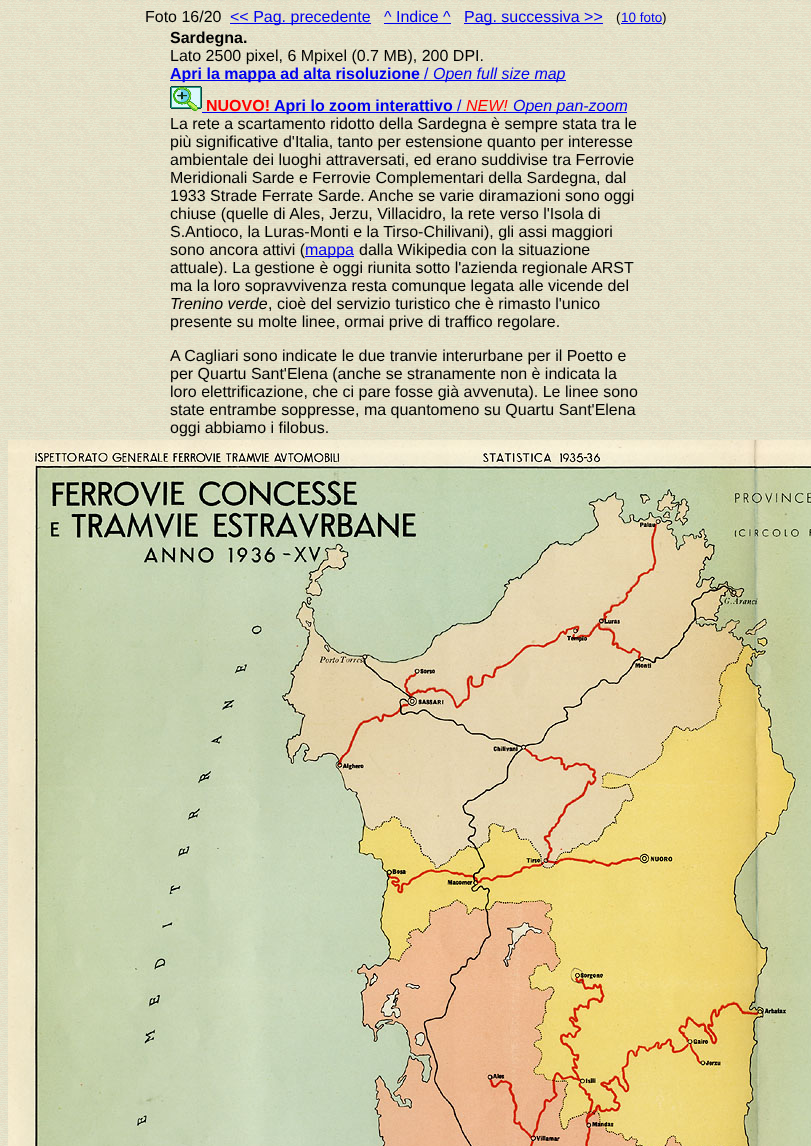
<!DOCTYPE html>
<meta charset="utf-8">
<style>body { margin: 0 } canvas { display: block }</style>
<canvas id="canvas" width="811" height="1146"></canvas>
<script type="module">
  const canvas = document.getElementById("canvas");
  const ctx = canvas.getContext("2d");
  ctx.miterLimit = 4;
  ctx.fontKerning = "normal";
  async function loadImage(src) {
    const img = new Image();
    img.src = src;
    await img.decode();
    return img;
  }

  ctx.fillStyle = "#ffffff";
  ctx.fillRect(0, 0, 811, 1146);
  ctx.drawImage(await loadImage("img1.png"), 0, 0, 811, 1146);
  ctx.font = "16px Liberation Sans";
  ctx.fillStyle = "#000000";
  ctx.fillText("Foto 16/20", 145, 22);
  ctx.fillStyle = "#0000ee";
  ctx.fillRect(230, 23, 141, 1);
  ctx.fillText("<< Pag. precedente", 230, 22);
  ctx.fillText("^ Indice ^", 384, 22);
  ctx.fillRect(384, 23, 67, 1);
  ctx.fillRect(464, 23, 139, 1);
  ctx.fillText("Pag. successiva >>", 464, 22);
  ctx.font = "13.5px Liberation Sans";
  ctx.fillStyle = "#000000";
  ctx.fillText("(", 616, 22);
  ctx.fillStyle = "#0000ee";
  ctx.fillRect(621, 23, 41, 1);
  ctx.fillText("10 foto", 621, 22);
  ctx.fillStyle = "#000000";
  ctx.fillText(")", 662, 22);
  ctx.font = "bold 16px Liberation Sans";
  ctx.fillText("Sardegna.", 170, 43);
  ctx.font = "16px Liberation Sans";
  ctx.fillText("Lato 2500 pixel, 6 Mpixel (0.7 MB), 200 DPI.", 170, 61);
  ctx.fillStyle = "#0000ee";
  ctx.fillRect(170, 80, 396, 1);
  ctx.font = "bold 16px Liberation Sans";
  ctx.fillText("Apri la mappa ad alta risoluzione", 170, 79);
  ctx.font = "16px Liberation Sans";
  ctx.fillText("/", 424, 79);
  ctx.font = "italic 16px Liberation Sans";
  ctx.fillText("Open full size map", 433, 79);
  ctx.drawImage(await loadImage("img2.png"), 170, 86, 32, 25);
  ctx.font = "bold 16px Liberation Sans";
  ctx.fillStyle = "#ff0000";
  ctx.fillText("NUOVO!", 206, 111);
  ctx.fillStyle = "#0000ee";
  ctx.fillRect(202, 112, 425, 1);
  ctx.fillText("Apri lo zoom interattivo", 274, 111);
  ctx.font = "16px Liberation Sans";
  ctx.fillText("/", 457, 111);
  ctx.font = "italic 16px Liberation Sans";
  ctx.fillStyle = "#ff0000";
  ctx.fillText("NEW!", 466, 111);
  ctx.fillStyle = "#0000ee";
  ctx.fillText("Open pan-zoom", 513, 111);
  ctx.font = "16px Liberation Sans";
  ctx.fillStyle = "#000000";
  ctx.fillText("La rete a scartamento ridotto della Sardegna è sempre stata tra le", 170, 129);
  ctx.fillText("più significative d'Italia, tanto per estensione quanto per interesse", 170, 147);
  ctx.fillText("ambientale dei luoghi attraversati, ed erano suddivise tra Ferrovie", 170, 165);
  ctx.fillText("Meridionali Sarde e Ferrovie Complementari della Sardegna, dal", 170, 183);
  ctx.fillText("1933 Strade Ferrate Sarde. Anche se varie diramazioni sono oggi", 170, 201);
  ctx.fillText("chiuse (quelle di Ales, Jerzu, Villacidro, la rete verso l'Isola di", 170, 219);
  ctx.fillText("S.Antioco, la Luras-Monti e la Tirso-Chilivani), gli assi maggiori", 170, 237);
  ctx.fillText("sono ancora attivi (", 170, 255);
  ctx.fillStyle = "#0000ee";
  ctx.fillRect(305, 256, 49, 1);
  ctx.fillText("mappa", 305, 255);
  ctx.fillStyle = "#000000";
  ctx.fillText("dalla Wikipedia con la situazione", 359, 255);
  ctx.fillText("attuale). La gestione è oggi riunita sotto l'azienda regionale ARST", 170, 273);
  ctx.fillText("ma la loro sopravvivenza resta comunque legata alle vicende del", 170, 291);
  ctx.font = "italic 16px Liberation Sans";
  ctx.fillText("Trenino verde", 170, 309);
  ctx.font = "16px Liberation Sans";
  ctx.fillText(", cioè del servizio turistico che è rimasto l'unico", 268, 309);
  ctx.fillText("presente su molte linee, ormai prive di traffico regolare.", 170, 327);
  ctx.fillText("A Cagliari sono indicate le due tranvie interurbane per il Poetto e", 170, 361);
  ctx.fillText("per Quartu Sant'Elena (anche se stranamente non è indicata la", 170, 379);
  ctx.fillText("loro elettrificazione, che ci pare fosse già avvenuta). Le linee sono", 170, 397);
  ctx.fillText("state entrambe soppresse, ma quantomeno su Quartu Sant'Elena", 170, 415);
  ctx.fillText("oggi abbiamo i filobus.", 170, 433);
  ctx.drawImage(await loadImage("img3.png"), 8, 440, 803, 706);
</script>
